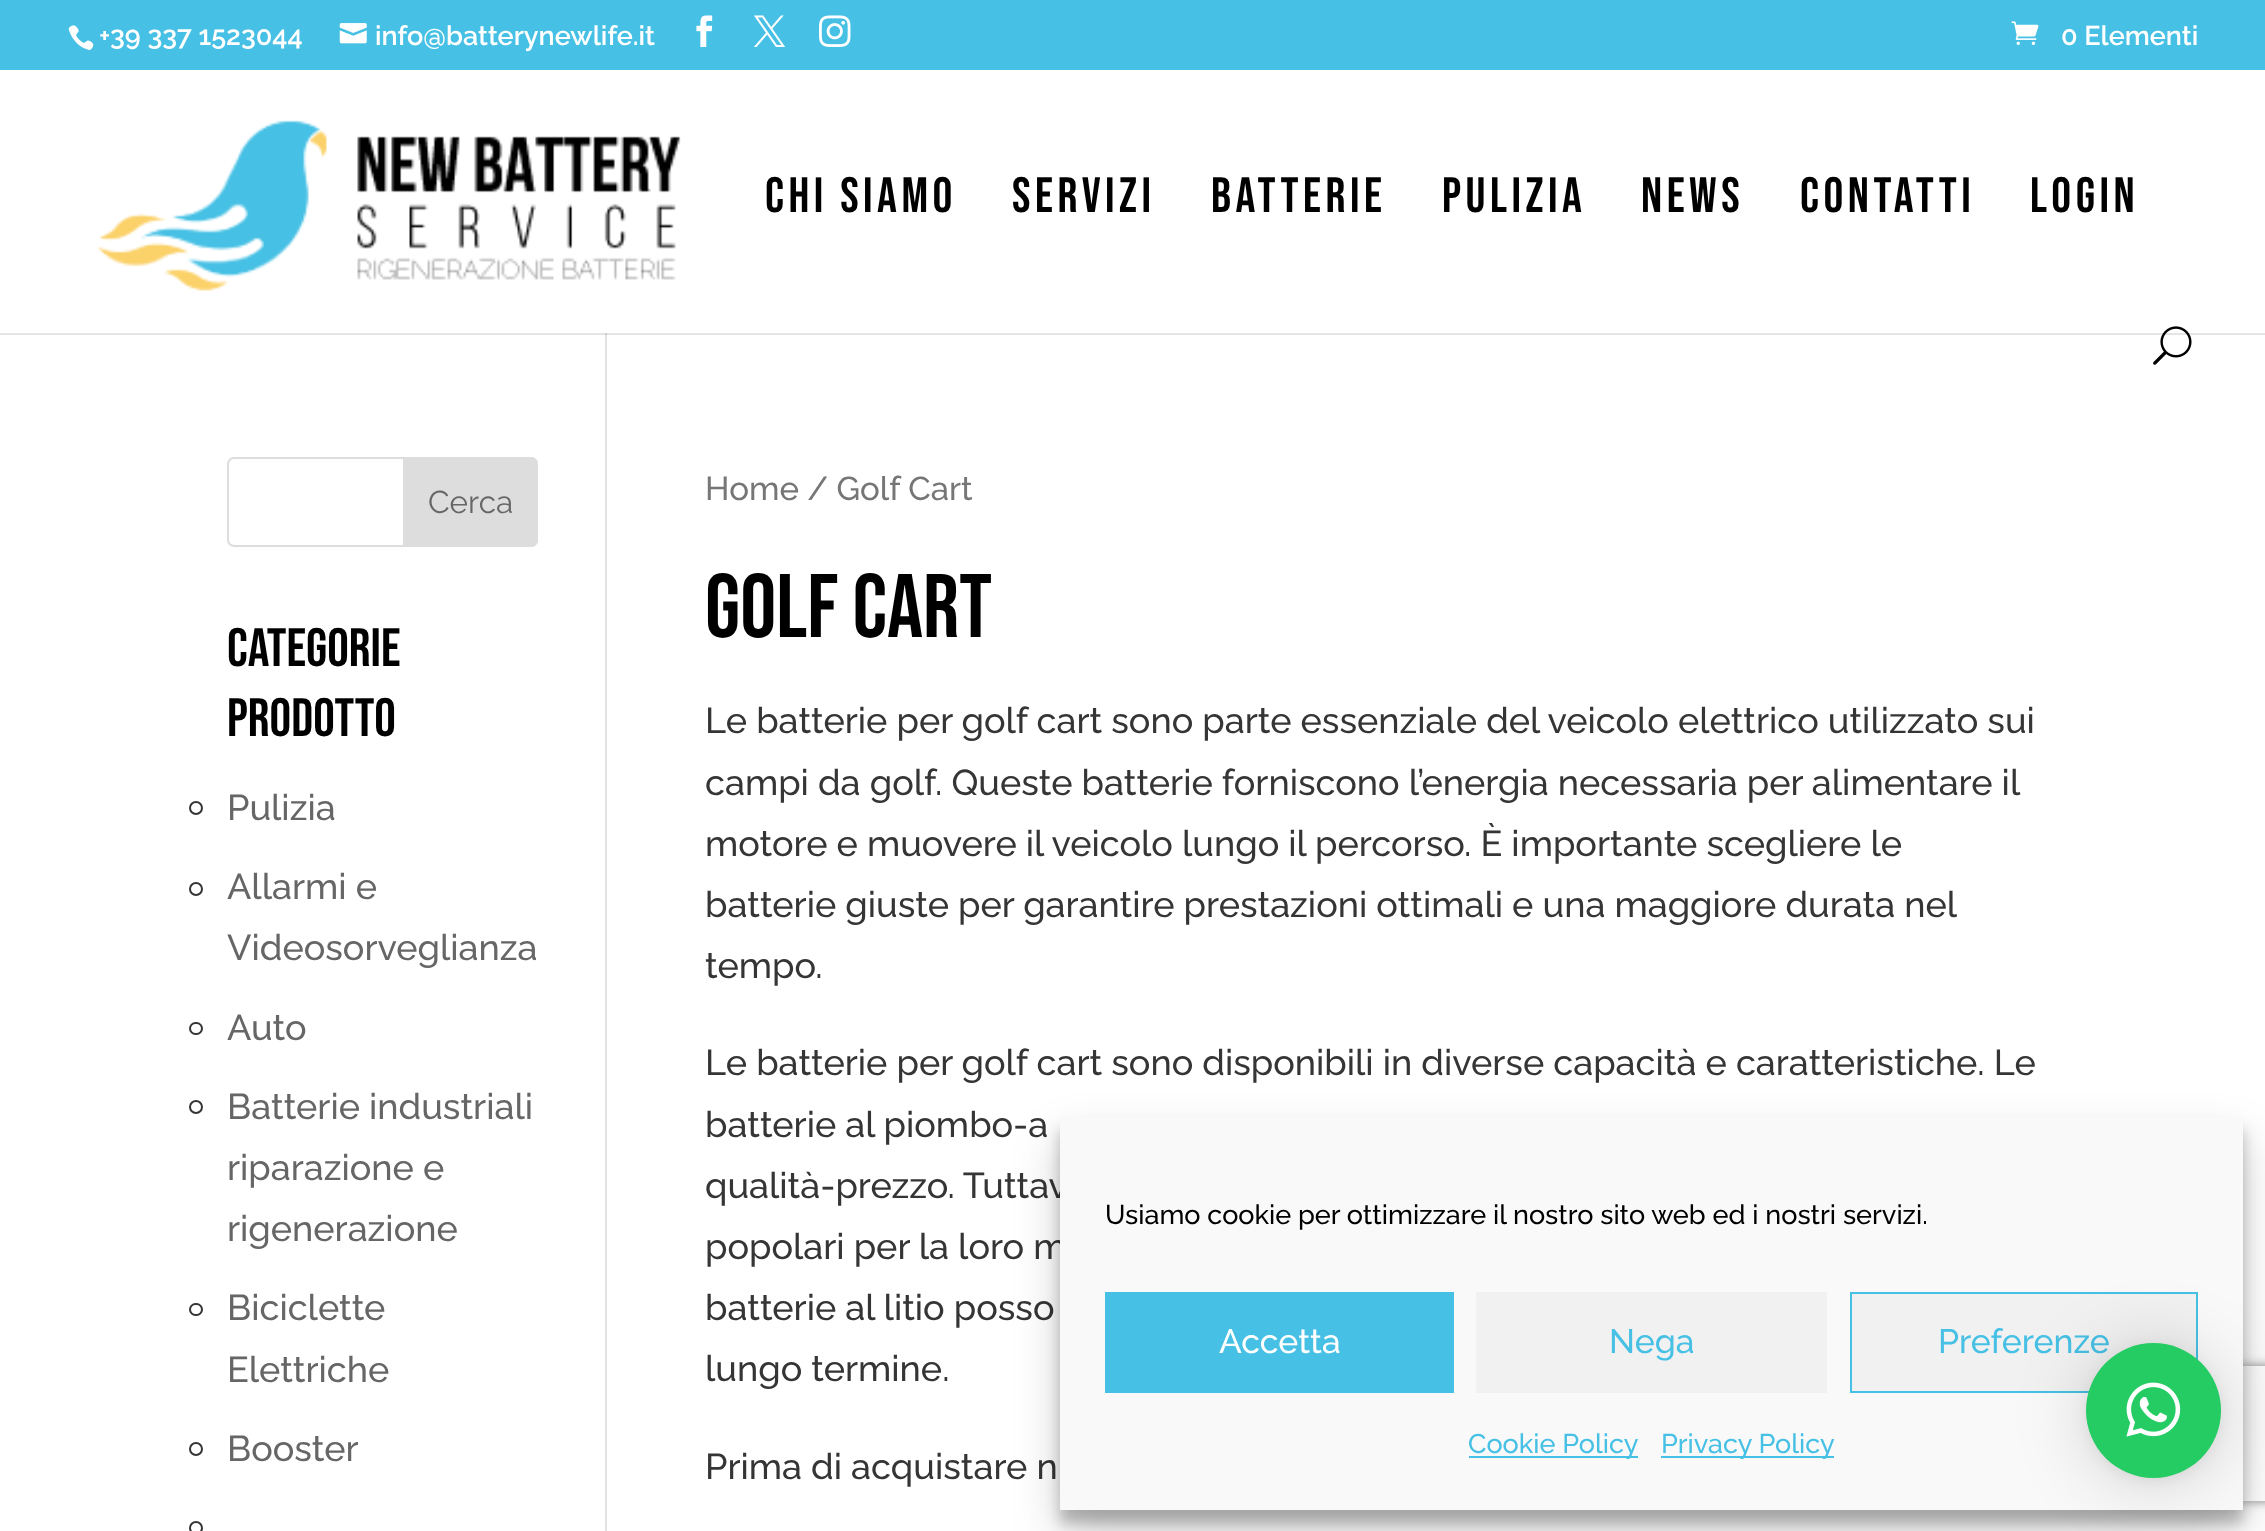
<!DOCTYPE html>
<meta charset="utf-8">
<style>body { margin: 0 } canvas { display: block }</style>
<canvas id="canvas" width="2265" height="1531"></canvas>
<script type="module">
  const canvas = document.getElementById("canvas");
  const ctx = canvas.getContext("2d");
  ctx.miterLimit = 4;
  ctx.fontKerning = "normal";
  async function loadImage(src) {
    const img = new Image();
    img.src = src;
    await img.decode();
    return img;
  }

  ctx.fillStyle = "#ffffff";
  ctx.fillRect(0, 0, 2265, 1531);
  ctx.fillStyle = "#46c0e4";
  ctx.fillRect(0, 0, 2265, 70);
  ctx.drawImage(await loadImage("img1.png"), 68, 25, 26, 26);
  ctx.font = "600 27px Raleway";
  ctx.fillStyle = "#ffffff";
  ctx.fillText("+39 337 1523044", 99, 45);
  ctx.drawImage(await loadImage("img2.png"), 339, 23, 28, 21);
  ctx.fillText("info@batterynewlife.it", 375, 45);
  ctx.drawImage(await loadImage("img3.png"), 696, 15, 17, 32);
  ctx.drawImage(await loadImage("img4.png"), 754, 15, 32, 32);
  ctx.drawImage(await loadImage("img5.png"), 819, 15, 32, 32);
  ctx.drawImage(await loadImage("img6.png"), 2011, 21, 28, 24);
  ctx.fillText("0 Elementi", 2061, 45);
  ctx.fillStyle = "#e2e2e2";
  ctx.fillRect(605, 326, 2, 1205);
  ctx.fillStyle = "rgba(0, 0, 0, 0.1)";
  ctx.beginPath();
  ctx.moveTo(0, 333);
  ctx.lineTo(0, 335);
  ctx.lineTo(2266, 335);
  ctx.lineTo(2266, 72);
  ctx.lineTo(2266, 333);
  ctx.closePath();
  ctx.fill();
  ctx.fillStyle = "#ffffff";
  ctx.fillRect(605, 326, 2, 7);
  ctx.drawImage(await loadImage("img7.png"), 97, 120, 584, 172);
  ctx.letterSpacing = "4.5px";
  ctx.font = "49.5px Bebas Neue";
  ctx.fillStyle = "#000000";
  ctx.fillText("CHI SIAMO", 765, 212);
  ctx.fillText("SERVIZI", 1012, 212);
  ctx.fillText("BATTERIE", 1211, 212);
  ctx.fillText("PULIZIA", 1442, 212);
  ctx.fillText("NEWS", 1641, 212);
  ctx.fillText("CONTATTI", 1800, 212);
  ctx.fillText("LOGIN", 2030, 212);
  ctx.drawImage(await loadImage("img8.png"), 2153, 326, 39, 39);
  ctx.beginPath();
  ctx.roundRect(228, 458, 309, 88, 6);
  ctx.strokeStyle = "#dddddd";
  ctx.lineWidth = 2;
  ctx.stroke();
  ctx.fillStyle = "#dddddd";
  ctx.beginPath();
  ctx.roundRect(404, 458, 133, 88, [0, 6, 6, 0]);
  ctx.fill();
  ctx.stroke();
  ctx.letterSpacing = "0px";
  ctx.font = "31.5px Raleway";
  ctx.fillStyle = "#666666";
  ctx.fillText("Cerca", 428, 513);
  ctx.font = "54px Bebas Neue";
  ctx.fillStyle = "#000000";
  ctx.fillText("CATEGORIE", 227, 666);
  ctx.fillText("PRODOTTO", 227, 736);
  ctx.beginPath();
  ctx.arc(196, 808, 6, 0, Math.PI * 2);
  ctx.strokeStyle = "#353535";
  ctx.stroke();
  ctx.font = "500 36px Raleway";
  ctx.fillStyle = "#666666";
  ctx.fillText("Pulizia", 227, 820);
  ctx.beginPath();
  ctx.arc(196, 889, 6, 0, Math.PI * 2);
  ctx.stroke();
  ctx.fillText("Allarmi e", 227, 899);
  ctx.fillText("Videosorveglianza", 227, 960);
  ctx.beginPath();
  ctx.roundRect(190, 1023, 12, 11, 5.5);
  ctx.stroke();
  ctx.fillText("Auto", 227, 1040);
  ctx.beginPath();
  ctx.arc(196, 1107, 6, 0, Math.PI * 2);
  ctx.stroke();
  ctx.fillText("Batterie industriali", 227, 1119);
  ctx.fillText("riparazione e", 227, 1180);
  ctx.fillText("rigenerazione", 227, 1241);
  ctx.beginPath();
  ctx.roundRect(190, 1304, 12, 11, 5.5);
  ctx.stroke();
  ctx.fillText("Biciclette", 227, 1320);
  ctx.fillText("Elettriche", 227, 1382);
  ctx.beginPath();
  ctx.arc(196, 1449, 6, 0, Math.PI * 2);
  ctx.stroke();
  ctx.fillText("Booster", 227, 1461);
  ctx.beginPath();
  ctx.arc(196, 1528, 6, 0, Math.PI * 2);
  ctx.stroke();
  ctx.font = "500 33px Raleway";
  ctx.fillStyle = "#767676";
  ctx.fillText("Home / Golf Cart", 705, 500);
  ctx.font = "90px Bebas Neue";
  ctx.fillStyle = "#000000";
  ctx.fillText("GOLF CART", 705, 637);
  ctx.font = "500 36px Raleway";
  ctx.fillStyle = "#353535";
  ctx.fillText("Le batterie per golf cart sono parte essenziale del veicolo elettrico utilizzato sui", 705, 733);
  ctx.fillText("campi da golf. Queste batterie forniscono l’energia necessaria per alimentare il", 705, 795);
  ctx.fillText("motore e muovere il veicolo lungo il percorso. È importante scegliere le", 705, 856);
  ctx.fillText("batterie giuste per garantire prestazioni ottimali e una maggiore durata nel", 705, 917);
  ctx.fillText("tempo.", 705, 978);
  ctx.fillText("Le batterie per golf cart sono disponibili in diverse capacità e caratteristiche. Le", 705, 1075);
  ctx.fillText("batterie al piombo-a", 705, 1137);
  ctx.fillText("qualità-prezzo. Tuttav", 705, 1198);
  ctx.fillText("popolari per la loro m", 705, 1259);
  ctx.fillText("batterie al litio posso", 705, 1320);
  ctx.fillText("lungo termine.", 705, 1381);
  ctx.fillText("Prima di acquistare n", 705, 1479);
  ctx.fillStyle = "rgba(0, 0, 0, 0.23)";
  ctx.filter = "blur(7px)";
  ctx.beginPath();
  ctx.rect(1060, 1130, 1183, 393);
  ctx.fill();
  ctx.filter = "none";
  ctx.fillStyle = "rgba(0, 0, 0, 0.19)";
  ctx.filter = "blur(22.5px)";
  ctx.beginPath();
  ctx.rect(1060, 1139, 1183, 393);
  ctx.fill();
  ctx.filter = "none";
  ctx.save();
  ctx.beginPath();
  ctx.moveTo(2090, 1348);
  ctx.lineTo(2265, 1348);
  ctx.lineTo(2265, 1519);
  ctx.lineTo(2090, 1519);
  ctx.closePath();
  ctx.moveTo(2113, 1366);
  ctx.lineTo(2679, 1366);
  ctx.bezierCurveTo(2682, 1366, 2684, 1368, 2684, 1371);
  ctx.lineTo(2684, 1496);
  ctx.bezierCurveTo(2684, 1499, 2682, 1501, 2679, 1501);
  ctx.lineTo(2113, 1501);
  ctx.bezierCurveTo(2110, 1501, 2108, 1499, 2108, 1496);
  ctx.lineTo(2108, 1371);
  ctx.bezierCurveTo(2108, 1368, 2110, 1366, 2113, 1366);
  ctx.closePath();
  ctx.clip("evenodd");
  ctx.fillStyle = "#808080";
  ctx.filter = "blur(5.5px)";
  ctx.beginPath();
  ctx.roundRect(2108, 1366, 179, 135, 5);
  ctx.fill();
  ctx.filter = "none";
  ctx.restore();
  ctx.fillStyle = "#f9f9f9";
  ctx.fillRect(1060, 1116, 1183, 394);
  ctx.font = "500 27px Raleway";
  ctx.fillStyle = "#000000";
  ctx.fillText("Usiamo cookie per ottimizzare il nostro sito web ed i nostri servizi.", 1105, 1224);
  ctx.fillStyle = "#46c0e4";
  ctx.fillRect(1105, 1292, 349, 101);
  ctx.font = "500 33.75px Raleway";
  ctx.fillStyle = "#ffffff";
  ctx.fillText("Accetta", 1219, 1353);
  ctx.fillStyle = "#f1f1f1";
  ctx.fillRect(1476, 1292, 351, 101);
  ctx.fillStyle = "#46c0e4";
  ctx.fillText("Nega", 1609, 1353);
  ctx.fillStyle = "#f1f1f1";
  ctx.beginPath();
  ctx.rect(1851, 1293, 346, 99);
  ctx.fill();
  ctx.strokeStyle = "#46c0e4";
  ctx.stroke();
  ctx.fillStyle = "#46c0e4";
  ctx.fillText("Preferenze", 1938, 1353);
  ctx.fillRect(1469, 1456, 169, 2);
  ctx.font = "500 27px Raleway";
  ctx.fillText("Cookie Policy", 1468, 1453);
  ctx.fillRect(1661, 1456, 173, 2);
  ctx.fillText("Privacy Policy", 1661, 1453);
  ctx.fillStyle = "rgba(0, 0, 0, 0.16)";
  ctx.filter = "blur(36px)";
  ctx.beginPath();
  ctx.roundRect(2086, 1348, 135, 135, 67.5);
  ctx.fill();
  ctx.filter = "none";
  ctx.fillStyle = "rgba(0, 0, 0, 0.06)";
  ctx.filter = "blur(7px)";
  ctx.beginPath();
  ctx.roundRect(2086, 1346, 135, 135, 67.5);
  ctx.fill();
  ctx.filter = "none";
  ctx.fillStyle = "#24cc63";
  ctx.beginPath();
  ctx.arc(2153.5, 1410.5, 67.5, 0, Math.PI * 2);
  ctx.fill();
  ctx.drawImage(await loadImage("img9.png"), 2126, 1382, 55, 55);
</script>
